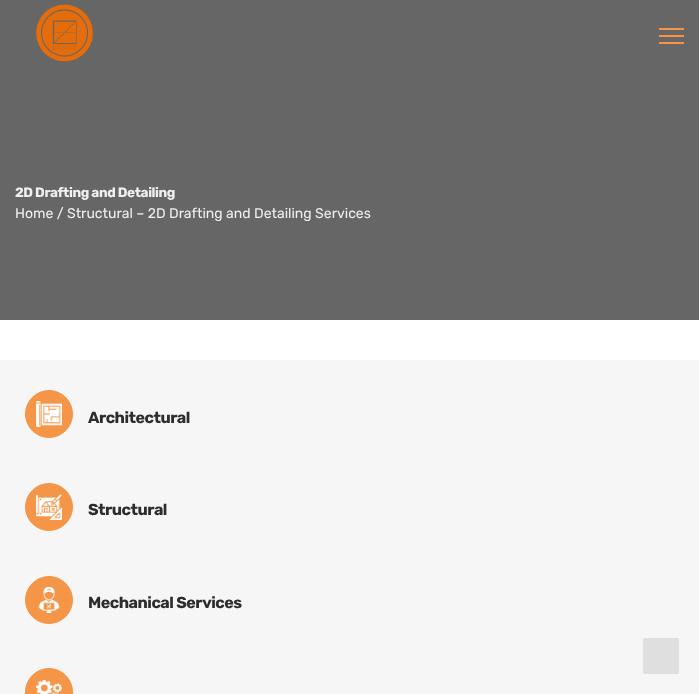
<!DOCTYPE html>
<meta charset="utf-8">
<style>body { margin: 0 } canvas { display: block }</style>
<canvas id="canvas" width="699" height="694"></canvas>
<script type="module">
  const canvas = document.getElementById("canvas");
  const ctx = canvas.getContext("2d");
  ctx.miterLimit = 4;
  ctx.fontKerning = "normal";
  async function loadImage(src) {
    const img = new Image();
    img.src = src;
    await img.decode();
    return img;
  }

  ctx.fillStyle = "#ffffff";
  ctx.fillRect(0, 0, 699, 694);
  ctx.fillStyle = "#666666";
  ctx.fillRect(0, 0, 699, 320);
  ctx.drawImage(await loadImage("img1.png"), 36, 4, 57, 58);
  ctx.fillStyle = "#f49548";
  ctx.fillRect(659, 35, 25, 2);
  ctx.fillRect(659, 28, 25, 2);
  ctx.fillRect(659, 42, 25, 2);
  ctx.letterSpacing = "-0.4px";
  ctx.font = "bold 13.5px Rubik";
  ctx.fillStyle = "#f0f0f0";
  ctx.fillText("2D Drafting and Detailing", 15, 197);
  ctx.letterSpacing = "0px";
  ctx.font = "300 14px Rubik";
  ctx.fillText("Home / Structural – 2D Drafting and Detailing Services", 15, 218);
  ctx.fillStyle = "#f6f6f6";
  ctx.fillRect(0, 360, 699, 334);
  ctx.fillStyle = "#f49548";
  ctx.beginPath();
  ctx.arc(49, 414, 23.5, 0, Math.PI * 2);
  ctx.fill();
  ctx.strokeStyle = "#f49548";
  ctx.stroke();
  ctx.drawImage(await loadImage("img2.png"), 36, 401, 26, 26);
  ctx.letterSpacing = "-0.5px";
  ctx.font = "bold 16px Rubik";
  ctx.fillStyle = "#2d2d2d";
  ctx.fillText("Architectural", 88, 423);
  ctx.fillStyle = "#f49548";
  ctx.beginPath();
  ctx.arc(49, 507, 23.5, 0, Math.PI * 2);
  ctx.fill();
  ctx.stroke();
  ctx.drawImage(await loadImage("img3.png"), 36, 494, 26, 26);
  ctx.fillStyle = "#2d2d2d";
  ctx.fillText("Structural", 88, 515);
  ctx.fillStyle = "#f49548";
  ctx.beginPath();
  ctx.arc(49, 600, 23.5, 0, Math.PI * 2);
  ctx.fill();
  ctx.stroke();
  ctx.drawImage(await loadImage("img4.png"), 38, 587, 22, 26);
  ctx.fillStyle = "#2d2d2d";
  ctx.fillText("Mechanical Services", 88, 608);
  ctx.fillStyle = "#f49548";
  ctx.beginPath();
  ctx.arc(49, 692, 23.5, 0, Math.PI * 2);
  ctx.fill();
  ctx.stroke();
  ctx.drawImage(await loadImage("img5.png"), 36, 679, 26, 15);
  ctx.fillStyle = "#dfdfdf";
  ctx.beginPath();
  ctx.roundRect(643, 638, 36, 36, 2);
  ctx.fill();
</script>
